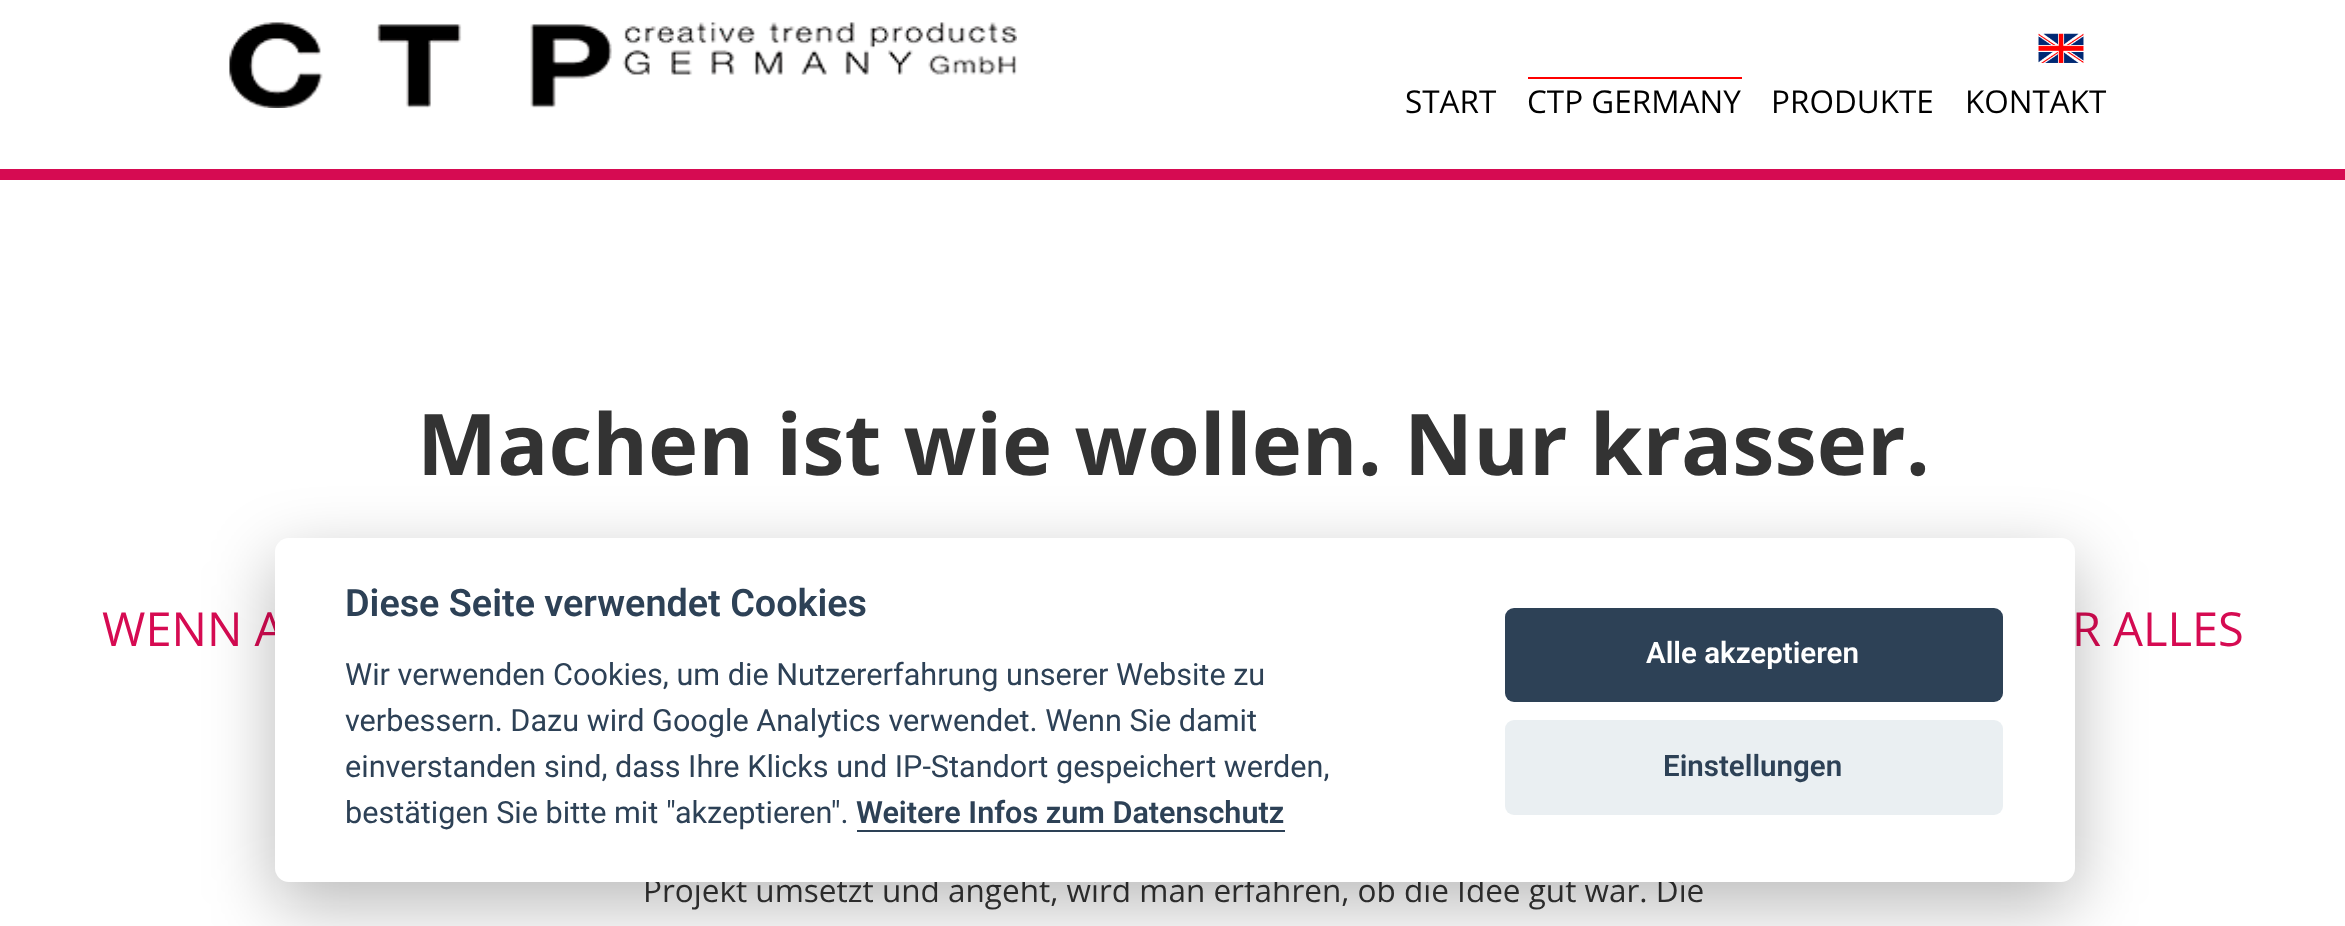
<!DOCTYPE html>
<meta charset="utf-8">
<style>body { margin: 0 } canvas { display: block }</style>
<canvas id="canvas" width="2345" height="926"></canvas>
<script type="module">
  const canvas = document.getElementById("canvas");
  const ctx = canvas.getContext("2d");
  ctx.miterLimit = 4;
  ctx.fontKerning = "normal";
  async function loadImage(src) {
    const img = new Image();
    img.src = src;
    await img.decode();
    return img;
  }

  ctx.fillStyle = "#ffffff";
  ctx.fillRect(0, 0, 2345, 926);
  ctx.drawImage(await loadImage("img1.png"), 229, 22, 788, 86);
  ctx.drawImage(await loadImage("img2.png"), 2038, 33, 46, 30);
  ctx.font = "31.5px Open Sans";
  ctx.fillStyle = "#000000";
  ctx.fillText("START", 1405, 113);
  ctx.fillText("CTP GERMANY", 1527, 113);
  ctx.fillStyle = "#ff0000";
  ctx.fillRect(1528, 77, 214, 2);
  ctx.fillStyle = "#000000";
  ctx.fillText("PRODUKTE", 1771, 113);
  ctx.fillText("KONTAKT", 1965, 113);
  ctx.fillStyle = "#d60b52";
  ctx.fillRect(0, 169, 2345, 11);
  ctx.font = "bold 85px Open Sans";
  ctx.fillStyle = "#333333";
  ctx.fillText("Machen ist wie wollen. Nur krasser.", 417, 475);
  ctx.font = "47px Open Sans";
  ctx.fillStyle = "#d60b52";
  ctx.fillText("WENN A", 102, 646);
  ctx.fillText("R ALLES", 2072, 646);
  ctx.font = "31.5px Open Sans";
  ctx.fillStyle = "#333333";
  ctx.fillText("Projekt umsetzt und angeht, wird man erfahren, ob die Idee gut war. Die", 643, 902);
  ctx.fillStyle = "rgba(2, 2, 3, 0.28)";
  ctx.filter = "blur(34px)";
  ctx.beginPath();
  ctx.roundRect(275, 560, 1800, 345, 14);
  ctx.fill();
  ctx.filter = "none";
  ctx.fillStyle = "#ffffff";
  ctx.beginPath();
  ctx.roundRect(275, 538, 1800, 344, 14);
  ctx.fill();
  ctx.font = "600 37.75px Roboto";
  ctx.fillStyle = "#2d4156";
  ctx.fillText("Diese Seite verwendet Cookies", 345, 616);
  ctx.font = "30.6px Roboto";
  ctx.fillText("Wir verwenden Cookies, um die Nutzererfahrung unserer Website zu", 345, 685);
  ctx.fillText("verbessern. Dazu wird Google Analytics verwendet. Wenn Sie damit", 345, 731);
  ctx.fillText("einverstanden sind, dass Ihre Klicks und IP-Standort gespeichert werden,", 345, 777);
  ctx.fillText("bestätigen Sie bitte mit \"akzeptieren\".", 345, 823);
  ctx.font = "600 30.6px Roboto";
  ctx.fillText("Weitere Infos zum Datenschutz", 856, 823);
  ctx.fillRect(857, 830, 428, 2);
  ctx.beginPath();
  ctx.roundRect(1505, 608, 498, 94, 9);
  ctx.fill();
  ctx.font = "600 29.5px Roboto";
  ctx.fillStyle = "#ffffff";
  ctx.fillText("Alle akzeptieren", 1646, 663);
  ctx.fillStyle = "#eaeff2";
  ctx.beginPath();
  ctx.roundRect(1505, 720, 498, 95, 9);
  ctx.fill();
  ctx.fillStyle = "#2d4156";
  ctx.fillText("Einstellungen", 1663, 776);
</script>
